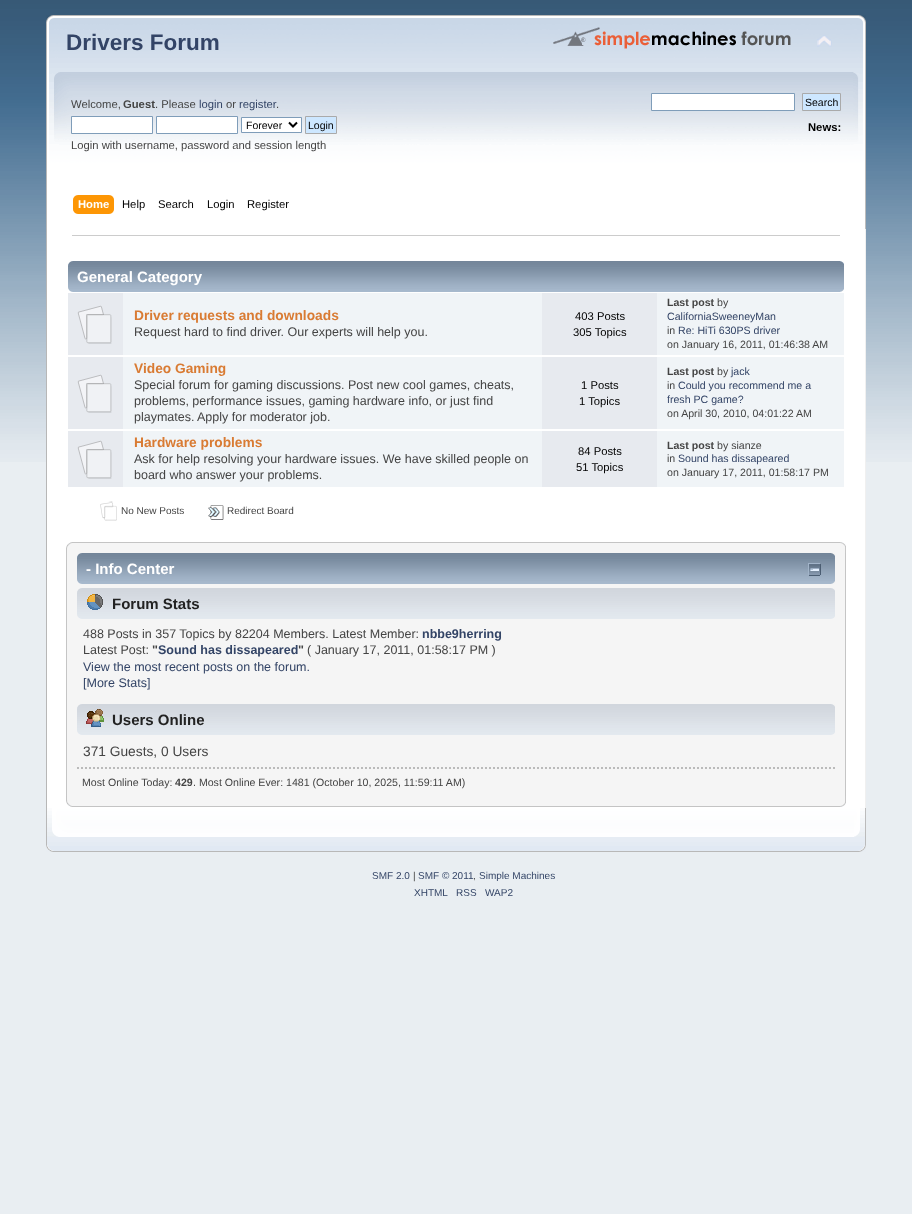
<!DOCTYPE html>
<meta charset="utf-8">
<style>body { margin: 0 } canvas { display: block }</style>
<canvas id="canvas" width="912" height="1214"></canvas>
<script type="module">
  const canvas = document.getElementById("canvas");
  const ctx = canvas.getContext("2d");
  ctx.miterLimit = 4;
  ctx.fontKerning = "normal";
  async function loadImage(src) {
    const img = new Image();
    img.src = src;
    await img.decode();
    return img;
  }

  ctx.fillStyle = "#e9eef2";
  ctx.fillRect(0, 0, 912, 1214);
  ctx.drawImage(await loadImage("img1.png"), 0, 0, 912, 462);
  ctx.drawImage(await loadImage("img2.png"), 46, 15, 807, 214);
  ctx.drawImage(await loadImage("img3.png"), 853, 15, 13, 214);
  ctx.font = "bold 22.5px Liberation Sans";
  ctx.fillStyle = "#334466";
  ctx.fillText("Drivers Forum", 66, 50);
  ctx.drawImage(await loadImage("img4.png"), 553, 27, 238, 22);
  ctx.drawImage(await loadImage("img5.png"), 817, 35, 15, 12);
  ctx.font = "11.25px Liberation Sans";
  ctx.fillStyle = "#444444";
  ctx.fillText("Welcome,", 71, 108);
  ctx.font = "bold 11.25px Liberation Sans";
  ctx.fillText("Guest", 123, 108);
  ctx.font = "11.25px Liberation Sans";
  ctx.fillText(". Please", 155, 108);
  ctx.fillStyle = "#334466";
  ctx.fillText("login", 199, 108);
  ctx.fillStyle = "#444444";
  ctx.fillText("or", 226, 108);
  ctx.fillStyle = "#334466";
  ctx.fillText("register", 239, 108);
  ctx.fillStyle = "#444444";
  ctx.fillText(".", 276, 108);
  ctx.fillStyle = "#ffffff";
  ctx.beginPath();
  ctx.rect(71.5, 116.5, 81, 17);
  ctx.fill();
  ctx.strokeStyle = "#7f9db9";
  ctx.stroke();
  ctx.beginPath();
  ctx.rect(156.5, 116.5, 81, 17);
  ctx.fill();
  ctx.stroke();
  ctx.beginPath();
  ctx.rect(241.5, 117.5, 60, 15);
  ctx.fill();
  ctx.stroke();
  ctx.beginPath();
  ctx.moveTo(289, 122.5);
  ctx.lineTo(293, 126.5);
  ctx.lineTo(297, 122.5);
  ctx.strokeStyle = "#000000";
  ctx.lineWidth = 2;
  ctx.stroke();
  ctx.font = "10.5px Liberation Sans";
  ctx.fillStyle = "#000000";
  ctx.fillText("Forever", 246, 129);
  ctx.fillStyle = "#cde7ff";
  ctx.beginPath();
  ctx.rect(305.5, 116.5, 31, 17);
  ctx.fill();
  ctx.strokeStyle = "#aaaaaa";
  ctx.lineWidth = 1;
  ctx.stroke();
  ctx.fillStyle = "#000000";
  ctx.fillText("Login", 308, 129);
  ctx.font = "11.25px Liberation Sans";
  ctx.fillStyle = "#444444";
  ctx.fillText("Login with username, password and session length", 71, 149);
  ctx.fillStyle = "#ffffff";
  ctx.beginPath();
  ctx.rect(651.5, 93.5, 143, 17);
  ctx.fill();
  ctx.strokeStyle = "#7f9db9";
  ctx.stroke();
  ctx.fillStyle = "#cde7ff";
  ctx.beginPath();
  ctx.rect(802.5, 93.5, 38, 17);
  ctx.fill();
  ctx.strokeStyle = "#aaaaaa";
  ctx.stroke();
  ctx.font = "10.5px Liberation Sans";
  ctx.fillStyle = "#000000";
  ctx.fillText("Search", 805, 106);
  ctx.font = "bold 11.25px Liberation Sans";
  ctx.fillText("News:", 808, 131);
  ctx.drawImage(await loadImage("img6.png"), 78, 195, 36, 19);
  ctx.drawImage(await loadImage("img7.png"), 73, 195, 5, 19);
  ctx.fillStyle = "#ffffff";
  ctx.fillText("Home", 78, 208);
  ctx.font = "11.25px Liberation Sans";
  ctx.fillStyle = "#000000";
  ctx.fillText("Help", 122, 208);
  ctx.fillText("Search", 158, 208);
  ctx.fillText("Login", 207, 208);
  ctx.fillText("Register", 247, 208);
  ctx.fillStyle = "#ffffff";
  ctx.fillRect(47, 229, 818, 579);
  ctx.fillStyle = "#b7b7b7";
  ctx.fillRect(46, 229, 1, 579);
  ctx.fillStyle = "#f0f0f0";
  ctx.fillRect(865, 229, 1, 579);
  ctx.fillStyle = "#cccccc";
  ctx.fillRect(72, 235, 768, 1);
  ctx.drawImage(await loadImage("img8.png"), 68, 261, 772, 31);
  ctx.drawImage(await loadImage("img9.png"), 840, 261, 4, 31);
  ctx.font = "bold 15px Liberation Sans";
  ctx.fillStyle = "#ffffff";
  ctx.fillText("General Category", 77, 282);
  ctx.fillStyle = "#f0f4f7";
  ctx.fillRect(123, 293, 721, 62);
  ctx.fillStyle = "#e7eaef";
  ctx.fillRect(68, 293, 55, 62);
  ctx.drawImage(await loadImage("img10.png"), 77, 305, 35, 39);
  ctx.font = "bold 13.75px Liberation Sans";
  ctx.fillStyle = "#d97b33";
  ctx.fillText("Driver requests and downloads", 134, 320);
  ctx.font = "12.5px Liberation Sans";
  ctx.fillStyle = "#444444";
  ctx.fillText("Request hard to find driver. Our experts will help you.", 134, 336);
  ctx.fillStyle = "#e7eaef";
  ctx.fillRect(542, 293, 115, 62);
  ctx.font = "11.25px Liberation Sans";
  ctx.fillStyle = "#000000";
  ctx.fillText("403 Posts", 575, 320);
  ctx.fillText("305 Topics", 573, 336);
  ctx.font = "bold 10.6px Liberation Sans";
  ctx.fillStyle = "#444444";
  ctx.fillText("Last post", 667, 306);
  ctx.font = "10.6px Liberation Sans";
  ctx.fillText("by", 717, 306);
  ctx.fillStyle = "#334466";
  ctx.fillText("CaliforniaSweeneyMan", 667, 320);
  ctx.fillStyle = "#444444";
  ctx.fillText("in", 667, 334);
  ctx.fillStyle = "#334466";
  ctx.fillText("Re: HiTi 630PS driver", 678, 334);
  ctx.fillStyle = "#444444";
  ctx.fillText("on January 16, 2011, 01:46:38 AM", 667, 348);
  ctx.fillStyle = "#f0f4f7";
  ctx.fillRect(123, 357, 721, 72);
  ctx.fillStyle = "#e7eaef";
  ctx.fillRect(68, 357, 55, 72);
  ctx.drawImage(await loadImage("img10.png"), 77, 374, 35, 39);
  ctx.font = "bold 13.75px Liberation Sans";
  ctx.fillStyle = "#d97b33";
  ctx.fillText("Video Gaming", 134, 373);
  ctx.font = "12.5px Liberation Sans";
  ctx.fillStyle = "#444444";
  ctx.fillText("Special forum for gaming discussions. Post new cool games, cheats,", 134, 389);
  ctx.fillText("problems, performance issues, gaming hardware info, or just find", 134, 405);
  ctx.fillText("playmates.", 134, 421);
  ctx.fillText("Apply for moderator job.", 197, 421);
  ctx.fillStyle = "#e7eaef";
  ctx.fillRect(542, 357, 115, 72);
  ctx.font = "11.25px Liberation Sans";
  ctx.fillStyle = "#000000";
  ctx.fillText("1 Posts", 581, 389);
  ctx.fillText("1 Topics", 579, 405);
  ctx.font = "bold 10.6px Liberation Sans";
  ctx.fillStyle = "#444444";
  ctx.fillText("Last post", 667, 375);
  ctx.font = "10.6px Liberation Sans";
  ctx.fillText("by", 717, 375);
  ctx.fillStyle = "#334466";
  ctx.fillText("jack", 731, 375);
  ctx.fillStyle = "#444444";
  ctx.fillText("in", 667, 389);
  ctx.fillStyle = "#334466";
  ctx.fillText("Could you recommend me a", 678, 389);
  ctx.fillText("fresh PC game?", 667, 403);
  ctx.fillStyle = "#444444";
  ctx.fillText("on April 30, 2010, 04:01:22 AM", 667, 417);
  ctx.fillStyle = "#f0f4f7";
  ctx.fillRect(123, 431, 721, 56);
  ctx.fillStyle = "#e7eaef";
  ctx.fillRect(68, 431, 55, 56);
  ctx.drawImage(await loadImage("img10.png"), 77, 440, 35, 39);
  ctx.font = "bold 13.75px Liberation Sans";
  ctx.fillStyle = "#d97b33";
  ctx.fillText("Hardware problems", 134, 447);
  ctx.font = "12.5px Liberation Sans";
  ctx.fillStyle = "#444444";
  ctx.fillText("Ask for help resolving your hardware issues. We have skilled people on", 134, 463);
  ctx.fillText("board who answer your problems.", 134, 479);
  ctx.fillStyle = "#e7eaef";
  ctx.fillRect(542, 431, 115, 56);
  ctx.font = "11.25px Liberation Sans";
  ctx.fillStyle = "#000000";
  ctx.fillText("84 Posts", 578, 455);
  ctx.fillText("51 Topics", 576, 471);
  ctx.font = "bold 10.6px Liberation Sans";
  ctx.fillStyle = "#444444";
  ctx.fillText("Last post", 667, 449);
  ctx.font = "10.6px Liberation Sans";
  ctx.fillText("by sianze", 717, 449);
  ctx.fillText("in", 667, 462);
  ctx.fillStyle = "#334466";
  ctx.fillText("Sound has dissapeared", 678, 462);
  ctx.fillStyle = "#444444";
  ctx.fillText("on January 17, 2011, 01:58:17 PM", 667, 476);
  ctx.drawImage(await loadImage("img11.png"), 100, 501, 17, 20);
  ctx.font = "10px Liberation Sans";
  ctx.fillText("No New Posts", 121, 514);
  ctx.drawImage(await loadImage("img12.png"), 208, 505, 16, 15);
  ctx.fillText("Redirect Board", 227, 514);
  ctx.drawImage(await loadImage("img13.png"), 66, 542, 774, 11);
  ctx.drawImage(await loadImage("img14.png"), 840, 542, 6, 11);
  ctx.fillStyle = "#f5f5f5";
  ctx.fillRect(67, 553, 778, 243);
  ctx.fillStyle = "#c5c5c5";
  ctx.fillRect(845, 553, 1, 243);
  ctx.fillRect(66, 553, 1, 243);
  ctx.drawImage(await loadImage("img15.png"), 77, 553, 754, 31);
  ctx.drawImage(await loadImage("img16.png"), 831, 553, 4, 31);
  ctx.font = "bold 15px Liberation Sans";
  ctx.fillStyle = "#ffffff";
  ctx.fillText("- Info Center", 86, 574);
  ctx.drawImage(await loadImage("img17.png"), 808, 563, 13, 13);
  ctx.drawImage(await loadImage("img18.png"), 77, 588, 754, 31);
  ctx.drawImage(await loadImage("img19.png"), 831, 588, 4, 31);
  ctx.drawImage(await loadImage("img20.png"), 87, 594, 16, 16);
  ctx.fillStyle = "#222222";
  ctx.fillText("Forum Stats", 112, 609);
  ctx.font = "12.5px Liberation Sans";
  ctx.fillStyle = "#444444";
  ctx.fillText("488 Posts in 357 Topics by 82204 Members. Latest Member:", 83, 638);
  ctx.font = "bold 12.5px Liberation Sans";
  ctx.fillStyle = "#334466";
  ctx.fillText("nbbe9herring", 422, 638);
  ctx.font = "12.5px Liberation Sans";
  ctx.fillStyle = "#444444";
  ctx.fillText("Latest Post:", 83, 654);
  ctx.font = "bold 12.5px Liberation Sans";
  ctx.fillText("\"", 152, 654);
  ctx.fillStyle = "#334466";
  ctx.fillText("Sound has dissapeared", 158, 654);
  ctx.fillStyle = "#444444";
  ctx.fillText("\"", 298, 654);
  ctx.font = "12.5px Liberation Sans";
  ctx.fillText("( January 17, 2011, 01:58:17 PM )", 307, 654);
  ctx.fillStyle = "#334466";
  ctx.fillText("View the most recent posts on the forum.", 83, 671);
  ctx.fillText("[More Stats]", 83, 687);
  ctx.drawImage(await loadImage("img18.png"), 77, 704, 754, 31);
  ctx.drawImage(await loadImage("img19.png"), 831, 704, 4, 31);
  ctx.drawImage(await loadImage("img21.png"), 86, 709, 18, 18);
  ctx.font = "bold 15px Liberation Sans";
  ctx.fillStyle = "#222222";
  ctx.fillText("Users Online", 112, 725);
  ctx.font = "13.75px Liberation Sans";
  ctx.fillStyle = "#444444";
  ctx.fillText("371 Guests, 0 Users", 83, 756);
  ctx.beginPath();
  ctx.moveTo(77, 768);
  ctx.lineTo(835, 768);
  ctx.strokeStyle = "#bbbbbb";
  ctx.lineWidth = 2;
  ctx.setLineDash([2, 2]);
  ctx.stroke();
  ctx.font = "10.6px Liberation Sans";
  ctx.fillText("Most Online Today:", 82, 786);
  ctx.font = "bold 10.6px Liberation Sans";
  ctx.fillText("429", 175, 786);
  ctx.font = "10.6px Liberation Sans";
  ctx.fillText(". Most Online Ever: 1481 (October 10, 2025, 11:59:11 AM)", 193, 786);
  ctx.drawImage(await loadImage("img22.png"), 66, 796, 774, 11);
  ctx.drawImage(await loadImage("img23.png"), 840, 796, 6, 11);
  ctx.drawImage(await loadImage("img24.png"), 46, 808, 808, 44);
  ctx.drawImage(await loadImage("img25.png"), 854, 808, 12, 44);
  ctx.font = "10px Liberation Sans";
  ctx.fillStyle = "#334466";
  ctx.fillText("SMF 2.0", 372, 879);
  ctx.fillStyle = "#444444";
  ctx.fillText("|", 413, 879);
  ctx.fillStyle = "#334466";
  ctx.fillText("SMF © 2011", 418, 879);
  ctx.fillStyle = "#444444";
  ctx.fillText(",", 473, 879);
  ctx.fillStyle = "#334466";
  ctx.fillText("Simple Machines", 479, 879);
  ctx.fillText("XHTML", 414, 896);
  ctx.fillText("RSS", 456, 896);
  ctx.fillText("WAP2", 485, 896);
</script>
